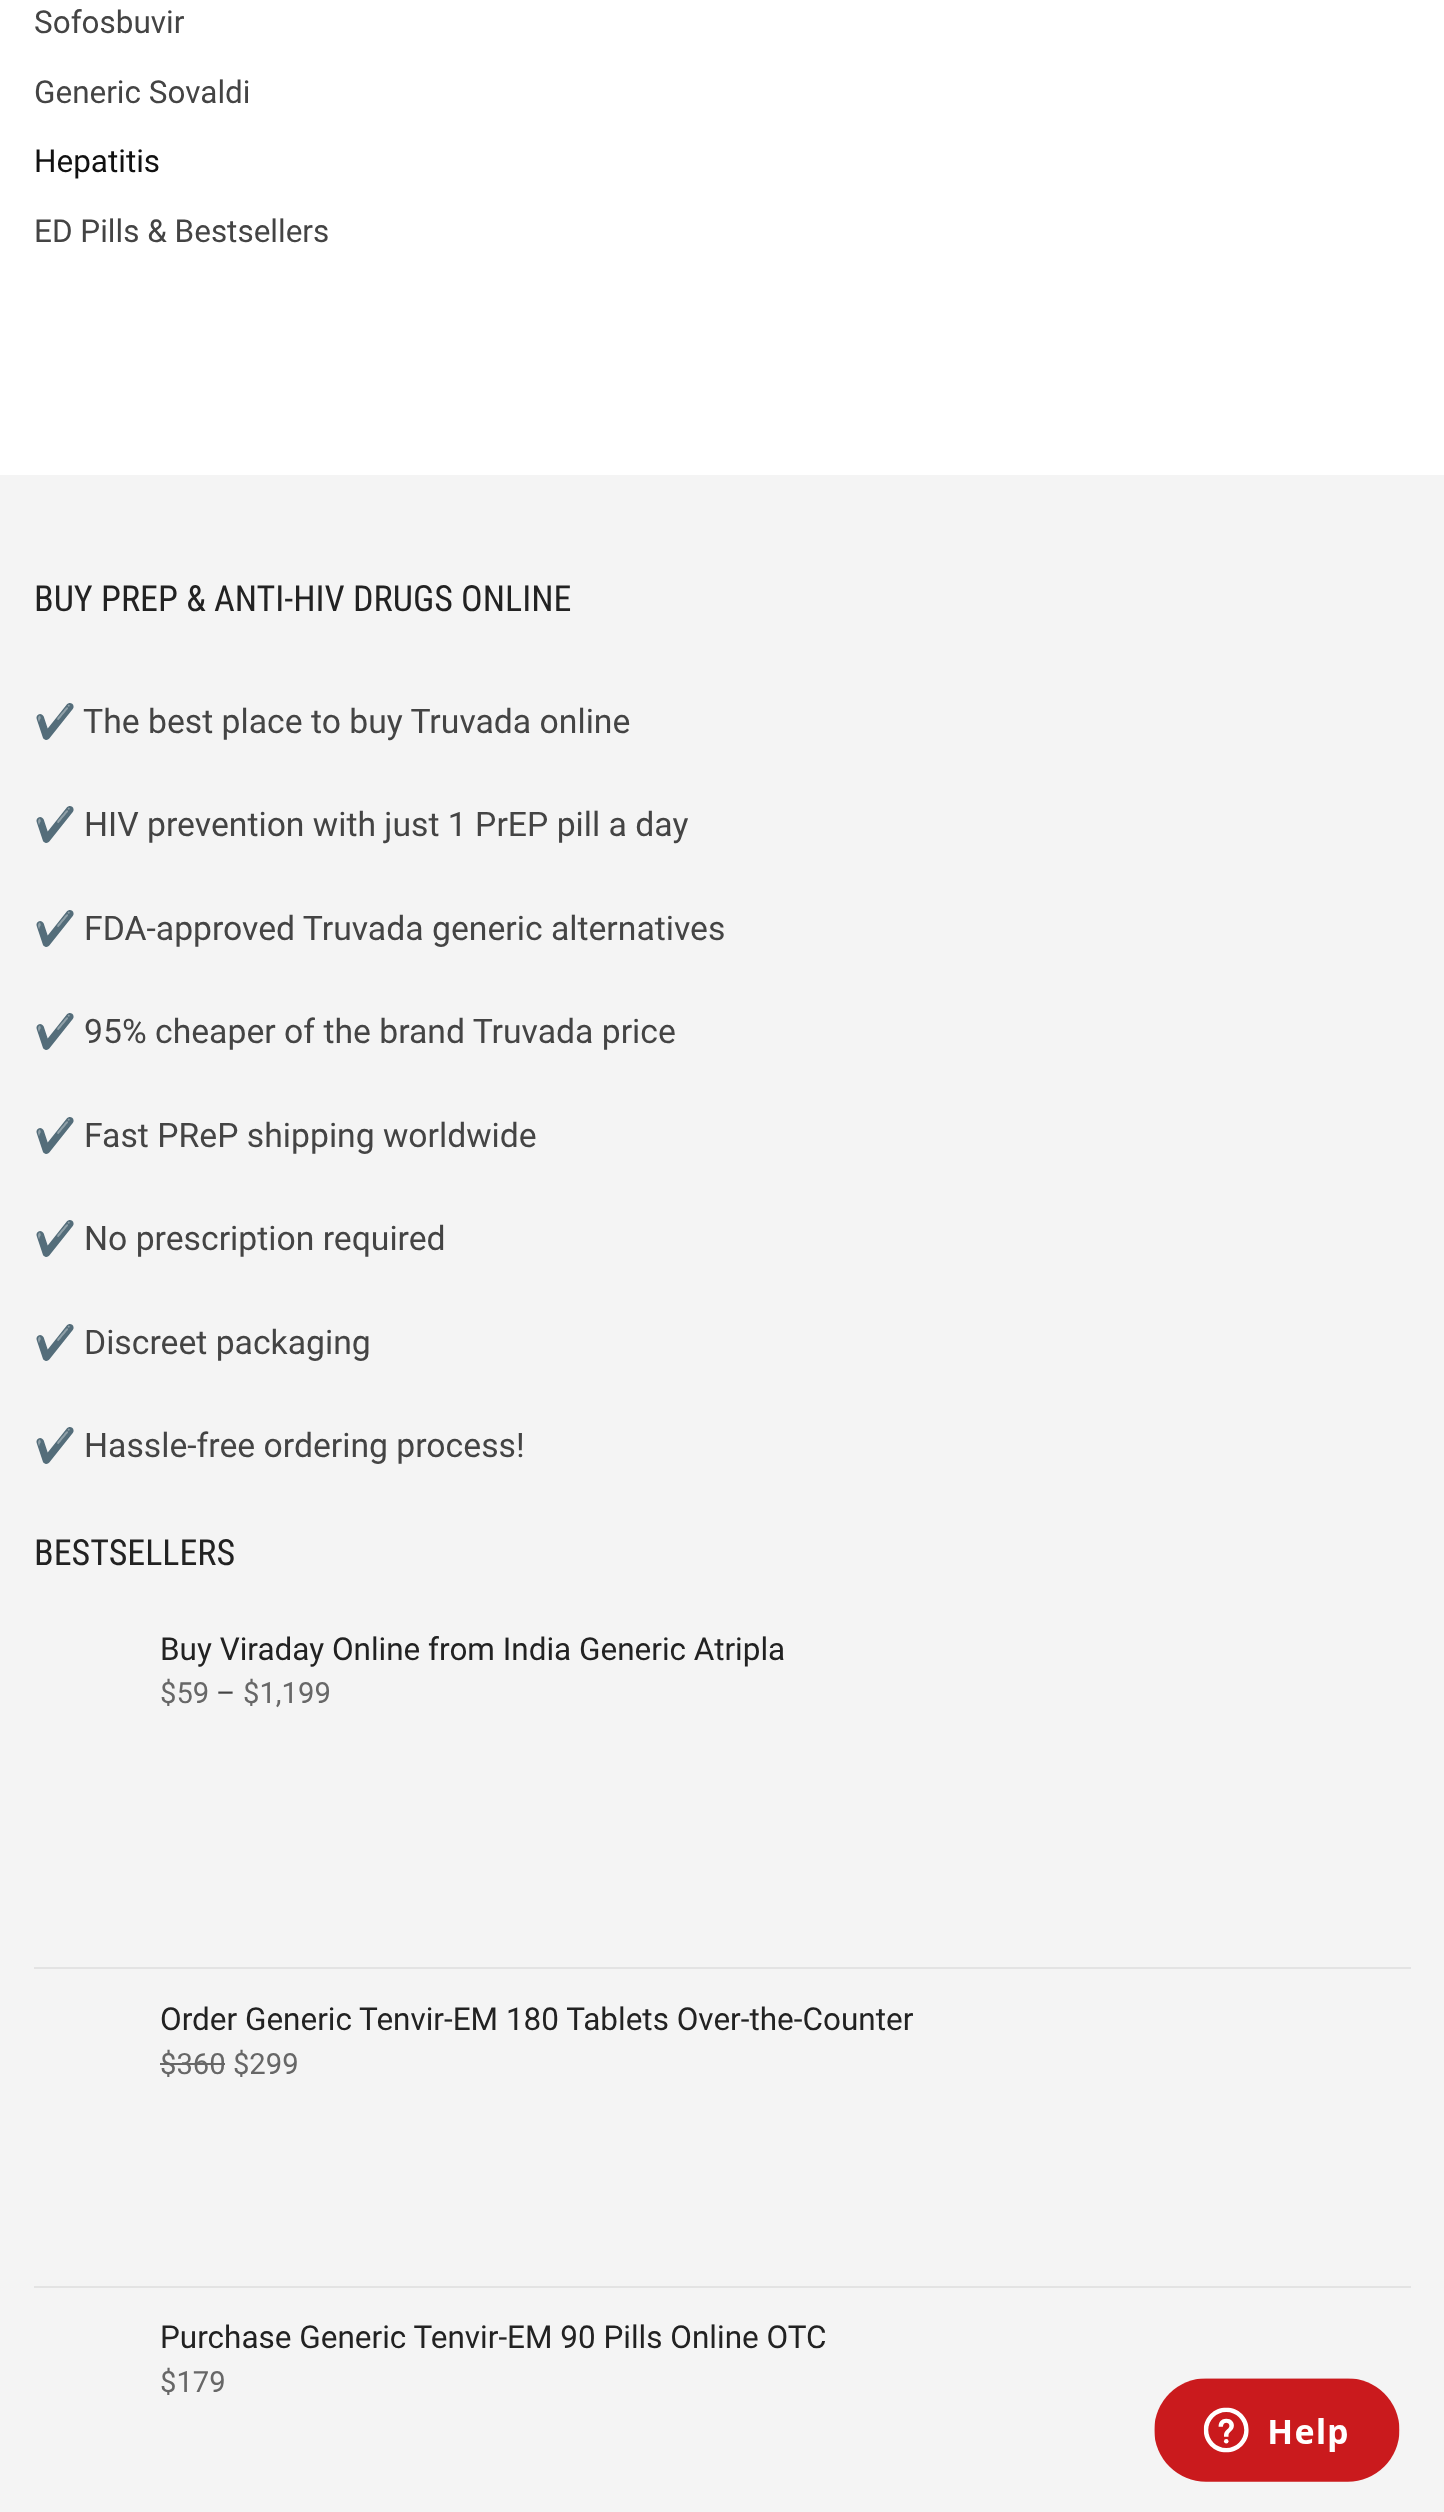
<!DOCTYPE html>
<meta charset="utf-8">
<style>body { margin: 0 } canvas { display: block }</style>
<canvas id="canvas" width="1444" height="2512"></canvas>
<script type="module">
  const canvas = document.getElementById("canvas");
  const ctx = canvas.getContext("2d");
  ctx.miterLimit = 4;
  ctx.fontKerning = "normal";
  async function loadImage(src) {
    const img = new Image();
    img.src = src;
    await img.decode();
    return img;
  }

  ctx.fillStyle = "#ffffff";
  ctx.fillRect(0, 0, 1444, 2512);
  ctx.font = "31.5px Roboto";
  ctx.fillStyle = "#444444";
  ctx.fillText("Sofosbuvir", 34, 33);
  ctx.fillText("Generic Sovaldi", 34, 103);
  ctx.fillStyle = "#111111";
  ctx.fillText("Hepatitis", 34, 172);
  ctx.fillStyle = "#444444";
  ctx.fillText("ED Pills & Bestsellers", 34, 242);
  ctx.fillStyle = "#f4f4f4";
  ctx.fillRect(0, 475, 1444, 2037);
  ctx.font = "36px Roboto Condensed";
  ctx.fillStyle = "#222222";
  ctx.fillText("BUY PREP & ANTI-HIV DRUGS ONLINE", 34, 611);
  ctx.font = "33.75px Noto Color Emoji";
  ctx.fillStyle = "#444444";
  ctx.fillText("✔️", 34, 733);
  ctx.font = "33.75px Roboto";
  ctx.fillText("The best place to buy Truvada online", 83, 733);
  ctx.font = "33.75px Noto Color Emoji";
  ctx.fillText("✔️", 34, 836);
  ctx.font = "33.75px Roboto";
  ctx.fillText("HIV prevention with just 1 PrEP pill a day", 84, 836);
  ctx.font = "33.75px Noto Color Emoji";
  ctx.fillText("✔️", 34, 940);
  ctx.font = "33.75px Roboto";
  ctx.fillText("FDA-approved Truvada generic alternatives", 84, 940);
  ctx.font = "33.75px Noto Color Emoji";
  ctx.fillText("✔️", 34, 1043);
  ctx.font = "33.75px Roboto";
  ctx.fillText("95% cheaper of the brand Truvada price", 84, 1043);
  ctx.font = "33.75px Noto Color Emoji";
  ctx.fillText("✔️", 34, 1147);
  ctx.font = "33.75px Roboto";
  ctx.fillText("Fast PReP shipping worldwide", 84, 1147);
  ctx.font = "33.75px Noto Color Emoji";
  ctx.fillText("✔️", 34, 1250);
  ctx.font = "33.75px Roboto";
  ctx.fillText("No prescription required", 84, 1250);
  ctx.font = "33.75px Noto Color Emoji";
  ctx.fillText("✔️", 34, 1354);
  ctx.font = "33.75px Roboto";
  ctx.fillText("Discreet packaging", 84, 1354);
  ctx.font = "33.75px Noto Color Emoji";
  ctx.fillText("✔️", 34, 1457);
  ctx.font = "33.75px Roboto";
  ctx.fillText("Hassle-free ordering process!", 84, 1457);
  ctx.font = "36px Roboto Condensed";
  ctx.fillStyle = "#222222";
  ctx.fillText("BESTSELLERS", 34, 1565);
  ctx.fillStyle = "#e3e3e3";
  ctx.fillRect(34, 1967, 1377, 2);
  ctx.font = "31.5px Roboto";
  ctx.fillStyle = "#222222";
  ctx.fillText("Buy Viraday Online from India Generic Atripla", 160, 1660);
  ctx.font = "29.25px Roboto";
  ctx.fillStyle = "#676767";
  ctx.fillText("$59", 160, 1703);
  ctx.fillStyle = "#444444";
  ctx.fillText("–", 216, 1703);
  ctx.fillStyle = "#676767";
  ctx.fillText("$1,199", 243, 1703);
  ctx.fillStyle = "#e3e3e3";
  ctx.fillRect(34, 2286, 1377, 2);
  ctx.font = "31.5px Roboto";
  ctx.fillStyle = "#222222";
  ctx.fillText("Order Generic Tenvir-EM 180 Tablets Over-the-Counter", 160, 2030);
  ctx.font = "29.25px Roboto";
  ctx.fillStyle = "#676767";
  ctx.fillText("$360 $299", 160, 2074);
  ctx.fillRect(160, 2063, 65, 2);
  ctx.font = "31.5px Roboto";
  ctx.fillStyle = "#222222";
  ctx.fillText("Purchase Generic Tenvir-EM 90 Pills Online OTC", 160, 2348);
  ctx.font = "29.25px Roboto";
  ctx.fillStyle = "#676767";
  ctx.fillText("$179", 160, 2392);
  ctx.drawImage(await loadImage("img1.png"), 1154, 2378, 246, 104);
</script>
